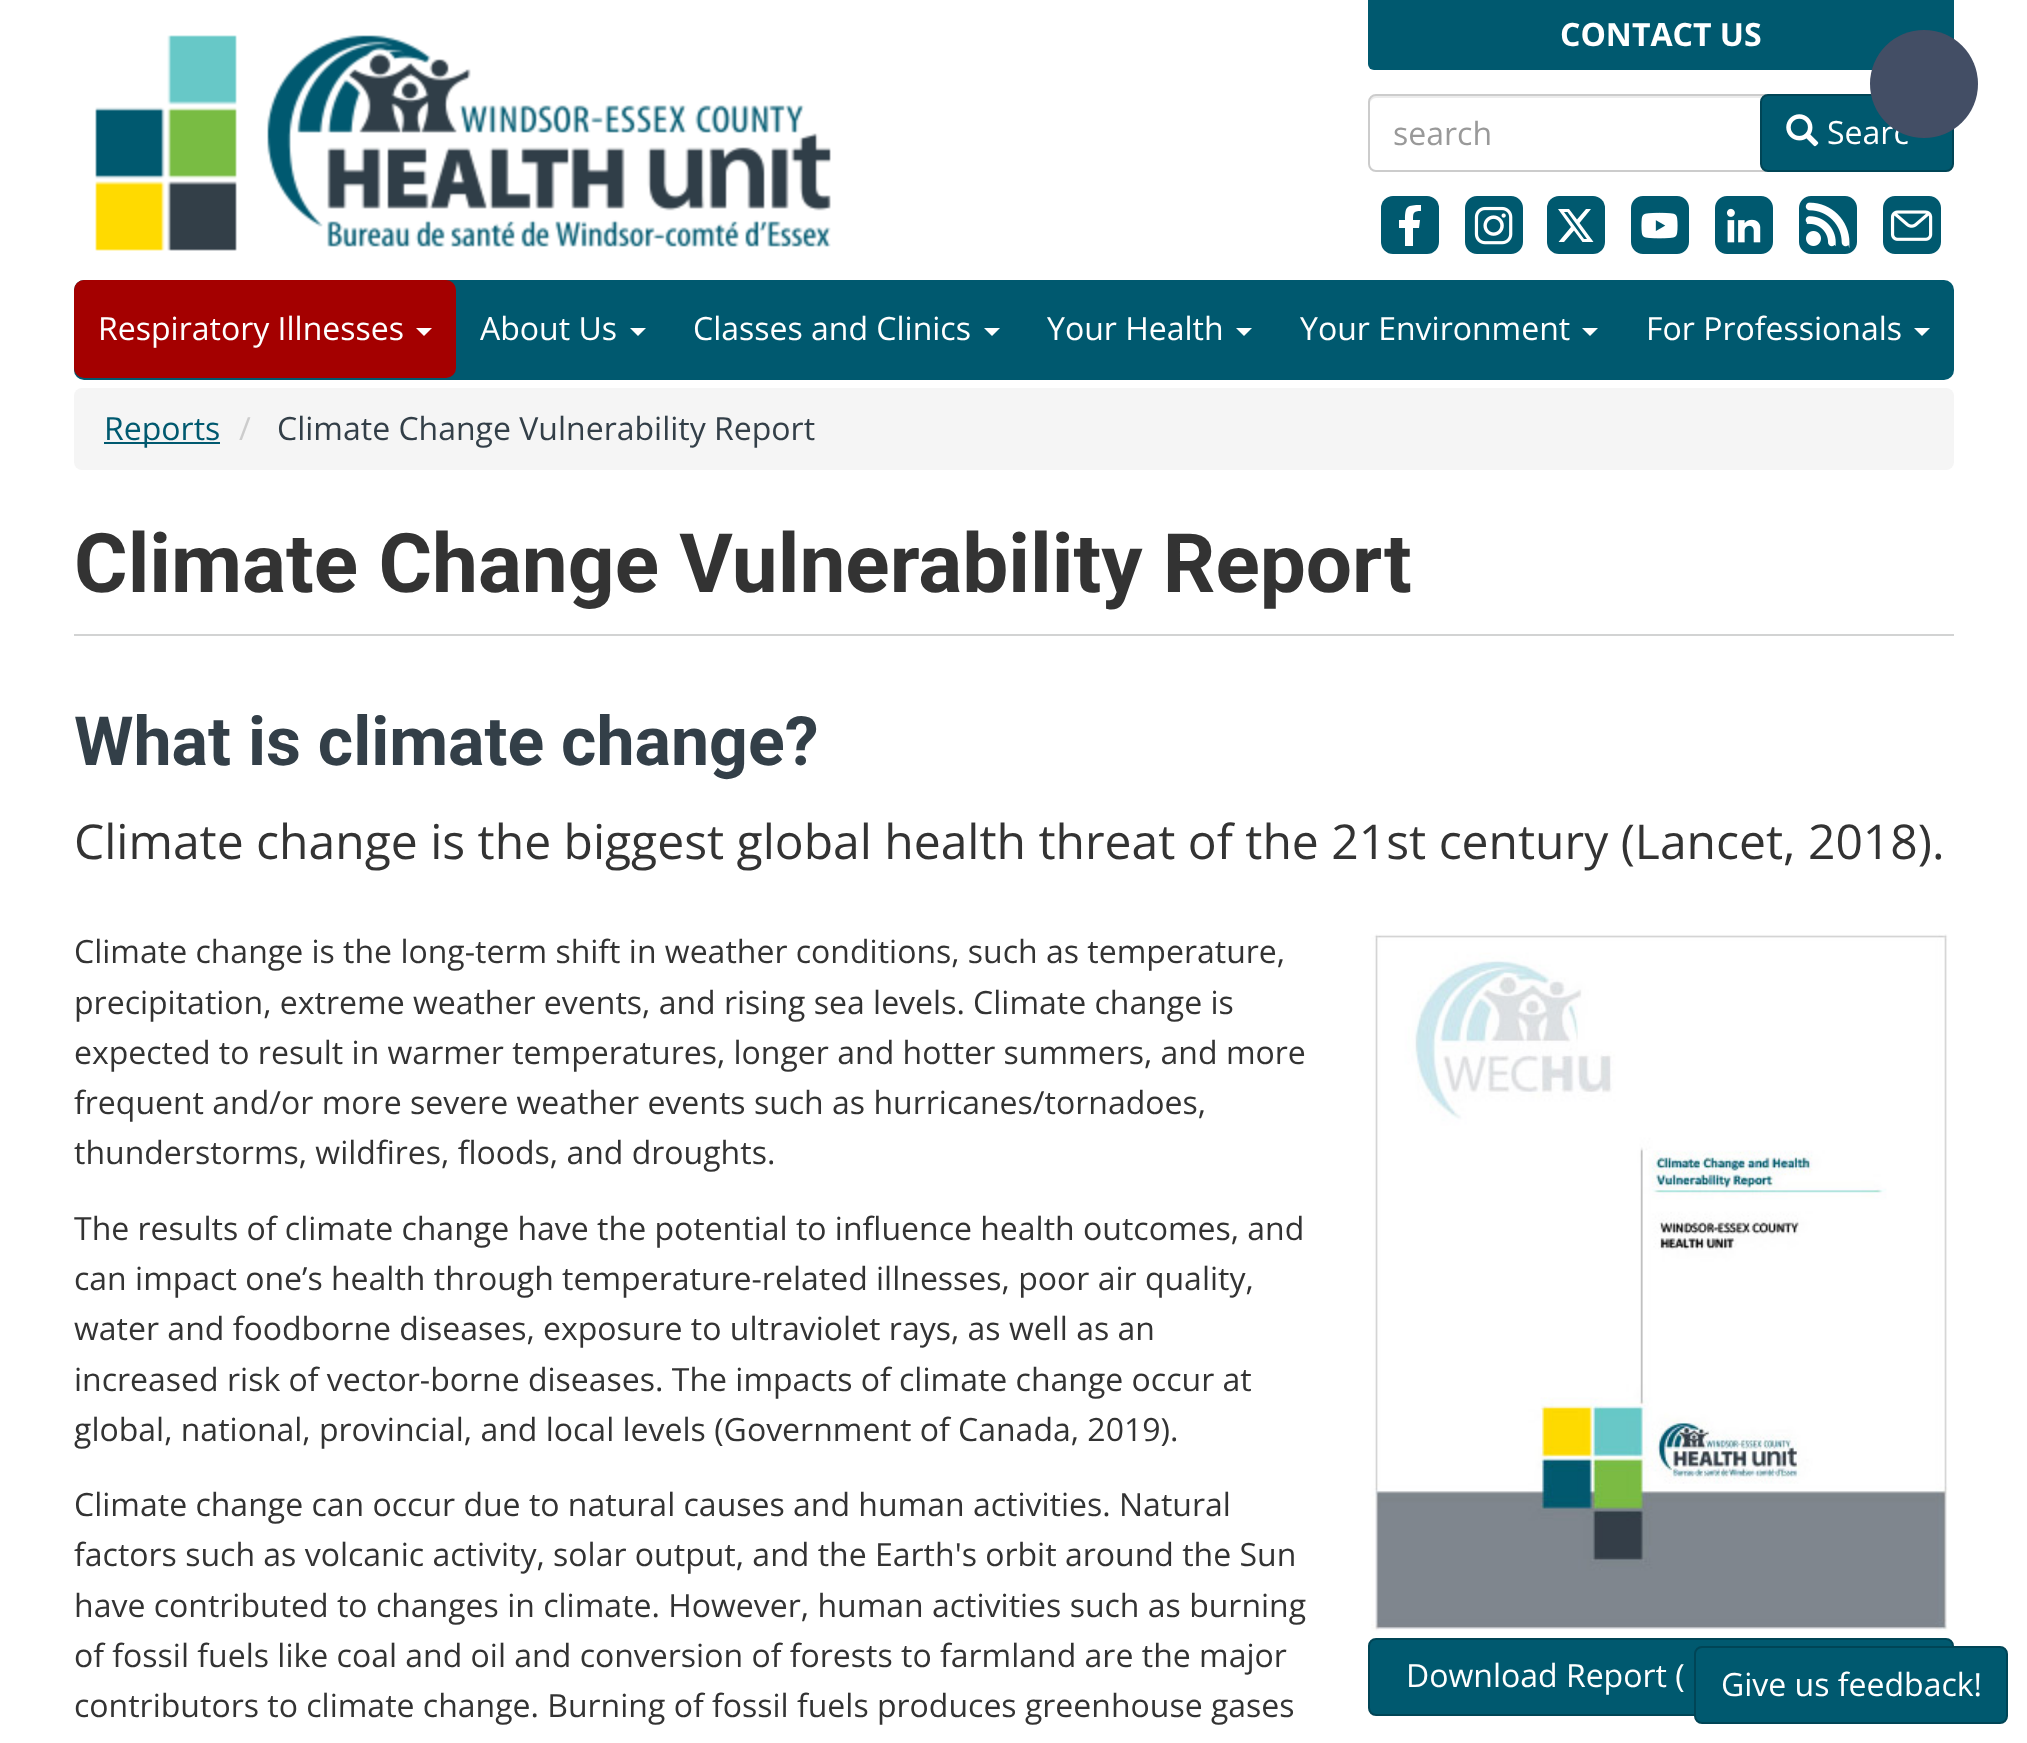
<!DOCTYPE html>
<meta charset="utf-8">
<style>body { margin: 0 } canvas { display: block }</style>
<canvas id="canvas" width="2027" height="1743"></canvas>
<script type="module">
  const canvas = document.getElementById("canvas");
  const ctx = canvas.getContext("2d");
  ctx.miterLimit = 4;
  ctx.fontKerning = "normal";
  async function loadImage(src) {
    const img = new Image();
    img.src = src;
    await img.decode();
    return img;
  }

  ctx.fillStyle = "#ffffff";
  ctx.fillRect(0, 0, 2027, 1743);
  ctx.drawImage(await loadImage("img1.png"), 95, 35, 736, 216);
  ctx.fillStyle = "#00596f";
  ctx.beginPath();
  ctx.roundRect(1368, 0, 586, 70, [0, 0, 6, 6]);
  ctx.fill();
  ctx.font = "bold 32px Open Sans";
  ctx.fillStyle = "#ffffff";
  ctx.fillText("CONTACT US", 1560, 46);
  ctx.fillStyle = "#ececec";
  ctx.beginPath();
  ctx.moveTo(1376, 98);
  ctx.lineTo(1946, 98);
  ctx.bezierCurveTo(1949, 98, 1952, 101, 1952, 104);
  ctx.bezierCurveTo(1952, 100, 1951, 96, 1946, 96);
  ctx.lineTo(1376, 96);
  ctx.bezierCurveTo(1371, 96, 1370, 100, 1370, 104);
  ctx.bezierCurveTo(1370, 101, 1373, 98, 1376, 98);
  ctx.closePath();
  ctx.fill();
  ctx.beginPath();
  ctx.roundRect(1369, 95, 584, 76, 7);
  ctx.strokeStyle = "#cccccc";
  ctx.lineWidth = 2;
  ctx.stroke();
  ctx.font = "32px Open Sans";
  ctx.fillStyle = "#999999";
  ctx.fillText("search", 1393, 145);
  ctx.fillStyle = "#00596f";
  ctx.beginPath();
  ctx.roundRect(1761, 95, 192, 76, 7);
  ctx.fill();
  ctx.strokeStyle = "#004556";
  ctx.stroke();
  ctx.drawImage(await loadImage("img2.png"), 1786, 114, 33, 33);
  ctx.fillStyle = "#ffffff";
  ctx.fillText("Searc", 1827, 144);
  ctx.fillStyle = "#00596f";
  ctx.beginPath();
  ctx.roundRect(1381, 196, 58, 58, 12);
  ctx.fill();
  ctx.fillStyle = "#ffffff";
  ctx.beginPath();
  ctx.moveTo(1405, 246);
  ctx.lineTo(1413, 246);
  ctx.lineTo(1413, 228);
  ctx.lineTo(1419, 228);
  ctx.lineTo(1420, 220);
  ctx.lineTo(1413, 220);
  ctx.bezierCurveTo(1413, 213, 1413, 211, 1421, 211);
  ctx.lineTo(1421, 205);
  ctx.bezierCurveTo(1407, 205, 1405, 206, 1405, 220);
  ctx.lineTo(1399, 220);
  ctx.lineTo(1399, 228);
  ctx.lineTo(1405, 228);
  ctx.closePath();
  ctx.fill("evenodd");
  ctx.drawImage(await loadImage("img3.png"), 1465, 196, 58, 58);
  ctx.fillStyle = "#00596f";
  ctx.beginPath();
  ctx.roundRect(1547, 196, 58, 58, 12);
  ctx.fill();
  ctx.fillStyle = "#ffffff";
  ctx.beginPath();
  ctx.moveTo(1584, 239);
  ctx.lineTo(1587, 239);
  ctx.lineTo(1567.5, 212);
  ctx.lineTo(1564, 212);
  ctx.closePath();
  ctx.moveTo(1586, 209);
  ctx.lineTo(1591, 209);
  ctx.lineTo(1579.5, 223);
  ctx.lineTo(1593.5, 242);
  ctx.lineTo(1582.5, 242);
  ctx.lineTo(1574, 230.5);
  ctx.lineTo(1564, 242);
  ctx.lineTo(1558.5, 242);
  ctx.lineTo(1571, 227);
  ctx.lineTo(1558, 209);
  ctx.lineTo(1569, 209);
  ctx.lineTo(1577, 219.5);
  ctx.closePath();
  ctx.fill();
  ctx.drawImage(await loadImage("img4.png"), 1631, 196, 58, 58);
  ctx.drawImage(await loadImage("img5.png"), 1715, 196, 58, 58);
  ctx.drawImage(await loadImage("img6.png"), 1799, 196, 58, 58);
  ctx.drawImage(await loadImage("img7.png"), 1883, 196, 58, 58);
  ctx.fillStyle = "#00596f";
  ctx.beginPath();
  ctx.roundRect(74, 280, 1880, 100, 10);
  ctx.fill();
  ctx.fillStyle = "#a40000";
  ctx.beginPath();
  ctx.roundRect(74, 280, 382, 98, 10);
  ctx.fill();
  ctx.fillStyle = "#ffffff";
  ctx.fillText("Respiratory Illnesses", 98, 340);
  ctx.beginPath();
  ctx.moveTo(416, 328);
  ctx.lineTo(432, 328);
  ctx.lineTo(424, 336);
  ctx.closePath();
  ctx.fill();
  ctx.fillText("About Us", 480, 340);
  ctx.beginPath();
  ctx.moveTo(630, 328);
  ctx.lineTo(646, 328);
  ctx.lineTo(638, 336);
  ctx.closePath();
  ctx.fill();
  ctx.fillText("Classes and Clinics", 693, 340);
  ctx.beginPath();
  ctx.moveTo(984, 328);
  ctx.lineTo(1000, 328);
  ctx.lineTo(992, 336);
  ctx.closePath();
  ctx.fill();
  ctx.fillText("Your Health", 1047, 340);
  ctx.beginPath();
  ctx.moveTo(1236, 328);
  ctx.lineTo(1252, 328);
  ctx.lineTo(1244, 336);
  ctx.closePath();
  ctx.fill();
  ctx.fillText("Your Environment", 1300, 340);
  ctx.beginPath();
  ctx.moveTo(1582, 328);
  ctx.lineTo(1598, 328);
  ctx.lineTo(1590, 336);
  ctx.closePath();
  ctx.fill();
  ctx.fillText("For Professionals", 1646, 340);
  ctx.beginPath();
  ctx.moveTo(1914, 328);
  ctx.lineTo(1930, 328);
  ctx.lineTo(1922, 336);
  ctx.closePath();
  ctx.fill();
  ctx.fillStyle = "#f5f5f5";
  ctx.beginPath();
  ctx.roundRect(74, 388, 1880, 82, 8);
  ctx.fill();
  ctx.fillStyle = "#00596f";
  ctx.fillRect(104, 442, 116, 2);
  ctx.fillText("Reports", 104, 440);
  ctx.fillStyle = "#cccccc";
  ctx.fillText("/", 239, 440);
  ctx.fillStyle = "#333f48";
  ctx.fillText("Climate Change Vulnerability Report", 277, 440);
  ctx.fillStyle = "#d2d3d3";
  ctx.fillRect(74, 634, 1880, 2);
  ctx.font = "bold 82px Roboto";
  ctx.fillStyle = "#333333";
  ctx.fillText("Climate Change Vulnerability Report", 74, 592);
  ctx.font = "bold 68px Roboto";
  ctx.fillStyle = "#333f48";
  ctx.fillText("What is climate change?", 74, 765);
  ctx.font = "48px Open Sans";
  ctx.fillStyle = "#333333";
  ctx.fillText("Climate change is the biggest global health threat of the 21st century (Lancet, 2018).", 74, 859);
  ctx.font = "32px Open Sans";
  ctx.fillText("Climate change is the long-term shift in weather conditions, such as temperature,", 74, 963);
  ctx.fillText("precipitation, extreme weather events, and rising sea levels. Climate change is", 74, 1014);
  ctx.fillText("expected to result in warmer temperatures, longer and hotter summers, and more", 74, 1064);
  ctx.fillText("frequent and/or more severe weather events such as hurricanes/tornadoes,", 74, 1114);
  ctx.fillText("thunderstorms, wildfires, floods, and droughts.", 74, 1164);
  ctx.fillText("The results of climate change have the potential to influence health outcomes, and", 74, 1240);
  ctx.fillText("can impact one’s health through temperature-related illnesses, poor air quality,", 74, 1290);
  ctx.fillText("water and foodborne diseases, exposure to ultraviolet rays, as well as an", 74, 1340);
  ctx.fillText("increased risk of vector-borne diseases. The impacts of climate change occur at", 74, 1391);
  ctx.fillText("global, national, provincial, and local levels (Government of Canada, 2019).", 74, 1441);
  ctx.fillText("Climate change can occur due to natural causes and human activities. Natural", 74, 1516);
  ctx.fillText("factors such as volcanic activity, solar output, and the Earth's orbit around the Sun", 74, 1566);
  ctx.fillText("have contributed to changes in climate. However, human activities such as burning", 74, 1617);
  ctx.fillText("of fossil fuels like coal and oil and conversion of forests to farmland are the major", 74, 1667);
  ctx.fillText("contributors to climate change. Burning of fossil fuels produces greenhouse gases", 74, 1717);
  ctx.drawImage(await loadImage("img8.png"), 1371, 934, 577, 697);
  ctx.fillStyle = "#00596f";
  ctx.beginPath();
  ctx.roundRect(1369, 1639, 584, 76, 7);
  ctx.fill();
  ctx.stroke();
  ctx.fillStyle = "#ffffff";
  ctx.fillText("Download Report (", 1406, 1687);
  ctx.fillStyle = "#00596f";
  ctx.beginPath();
  ctx.roundRect(1695, 1647, 312, 76, 7);
  ctx.fill();
  ctx.stroke();
  ctx.fillStyle = "#ffffff";
  ctx.fillText("Give us feedback!", 1721, 1696);
  ctx.fillStyle = "#434e65";
  ctx.beginPath();
  ctx.arc(1924, 84, 54, 0, Math.PI * 2);
  ctx.fill();
</script>
